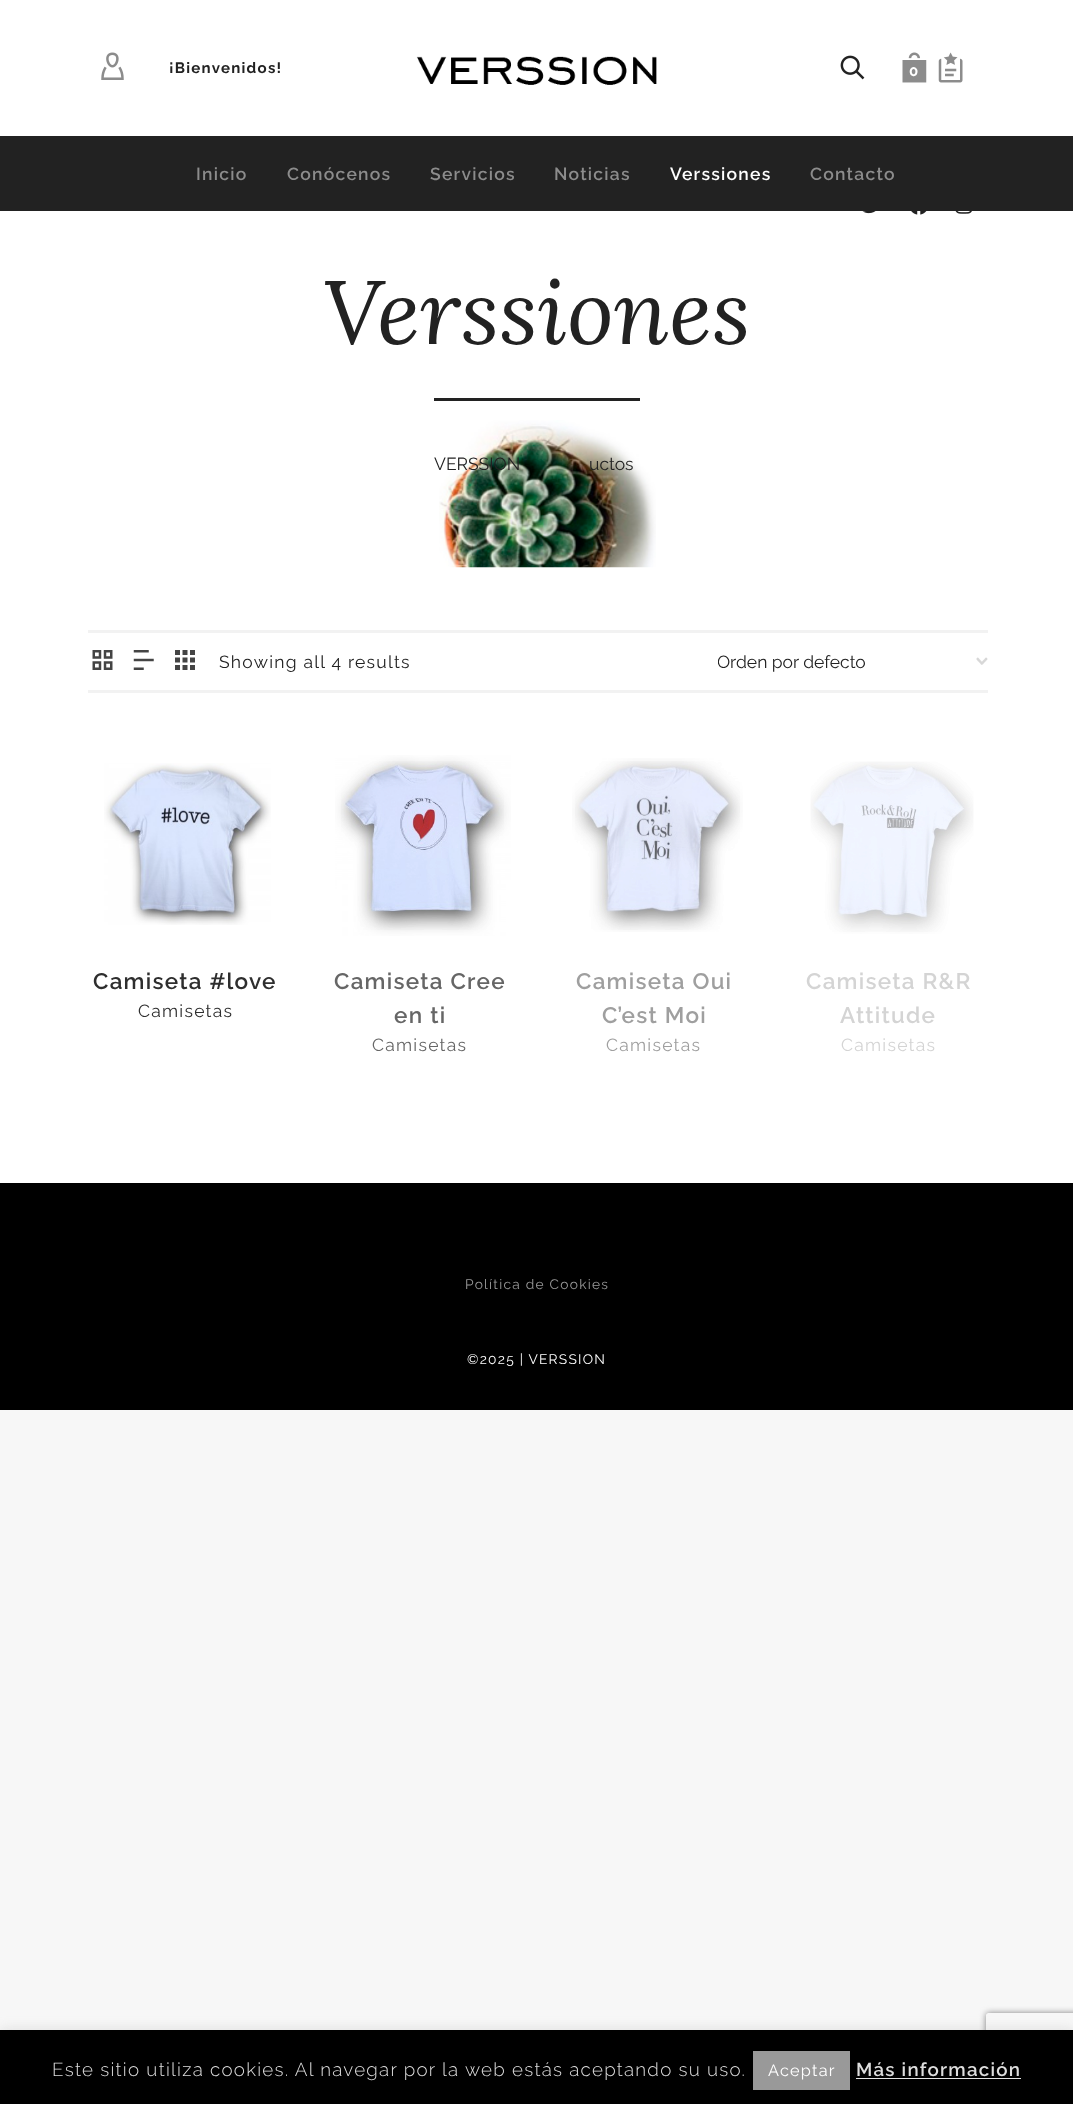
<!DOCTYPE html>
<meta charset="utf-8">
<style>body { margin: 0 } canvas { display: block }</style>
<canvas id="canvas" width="1073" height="2104"></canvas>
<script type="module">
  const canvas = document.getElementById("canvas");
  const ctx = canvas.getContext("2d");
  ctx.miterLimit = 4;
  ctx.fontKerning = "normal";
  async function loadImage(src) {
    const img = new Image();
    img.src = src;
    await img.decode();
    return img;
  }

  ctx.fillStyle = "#f7f7f7";
  ctx.fillRect(0, 0, 1073, 2104);
  ctx.fillStyle = "#ffffff";
  ctx.fillRect(0, 0, 1073, 136);
  ctx.drawImage(await loadImage("img1.png"), 101, 52, 23, 28);
  ctx.letterSpacing = "1.25px";
  ctx.font = "bold 15px Raleway";
  ctx.fillStyle = "#222222";
  ctx.fillText("¡Bienvenidos!", 169, 73);
  ctx.drawImage(await loadImage("img2.png"), 416, 56, 241, 29);
  ctx.drawImage(await loadImage("img3.png"), 840, 55, 25, 25);
  ctx.drawImage(await loadImage("img4.png"), 902, 52, 25, 31);
  ctx.letterSpacing = "0px";
  ctx.fillStyle = "#ffffff";
  ctx.fillText("0", 909, 76);
  ctx.drawImage(await loadImage("img5.png"), 938, 52, 25, 31);
  ctx.fillRect(0, 211, 1073, 972);
  ctx.drawImage(await loadImage("img6.png"), 862, 211, 14, 3);
  ctx.drawImage(await loadImage("img7.png"), 911, 211, 16, 4);
  ctx.drawImage(await loadImage("img8.png"), 955, 211, 17, 3);
  ctx.fillStyle = "#222222";
  ctx.fillRect(0, 136, 1073, 75);
  ctx.letterSpacing = "1.25px";
  ctx.font = "600 17.5px Raleway";
  ctx.fillStyle = "#8c8c8c";
  ctx.fillText("Inicio", 196, 180);
  ctx.fillText("Conócenos", 287, 180);
  ctx.fillText("Servicios", 430, 180);
  ctx.fillText("Noticias", 554, 180);
  ctx.fillStyle = "#ffffff";
  ctx.fillText("Verssiones", 670, 180);
  ctx.fillStyle = "#8c8c8c";
  ctx.fillText("Contacto", 810, 180);
  ctx.drawImage(await loadImage("img9.png"), 439, 420, 217, 148);
  ctx.letterSpacing = "0px";
  ctx.font = "italic 90px Lora";
  ctx.fillStyle = "#222222";
  ctx.fillText("Verssiones", 323, 344);
  ctx.fillRect(434, 398, 206, 3);
  ctx.font = "17.5px Raleway";
  ctx.fillText("VERSSION", 434, 470);
  ctx.fillText("uctos", 589, 470);
  ctx.fillStyle = "#f2f2f2";
  ctx.fillRect(88, 630, 900, 3);
  ctx.fillRect(88, 690, 900, 3);
  ctx.drawImage(await loadImage("img10.png"), 92, 650, 21, 20);
  ctx.drawImage(await loadImage("img11.png"), 133, 650, 21, 20);
  ctx.drawImage(await loadImage("img12.png"), 175, 650, 20, 20);
  ctx.letterSpacing = "1.25px";
  ctx.fillStyle = "#222222";
  ctx.fillText("Showing all 4 results", 219, 668);
  ctx.drawImage(await loadImage("img13.png"), 976, 657, 12, 8);
  ctx.save();
  ctx.beginPath();
  ctx.rect(718, 645, 245, 33);
  ctx.clip();
  ctx.letterSpacing = "0px";
  ctx.fillText("Orden por defecto", 717, 668);
  ctx.restore();
  ctx.drawImage(await loadImage("img14.png"), 104, 763, 167, 162);
  ctx.drawImage(await loadImage("img15.png"), 115, 788, 146, 129);
  ctx.font = "600 22.5px Raleway";
  ctx.fillStyle = "#2e2e2e";
  ctx.fillText("Camiseta #love", 93, 989);
  ctx.font = "17.5px Raleway";
  ctx.fillText("Camisetas", 138, 1017);
  ctx.drawImage(await loadImage("img16.png"), 335, 755, 176, 181);
  ctx.drawImage(await loadImage("img17.png"), 341, 761, 163, 169);
  ctx.font = "600 22.5px Raleway";
  ctx.fillStyle = "#666666";
  ctx.fillText("Camiseta Cree", 334, 989);
  ctx.fillText("en ti", 394, 1023);
  ctx.font = "17.5px Raleway";
  ctx.fillText("Camisetas", 372, 1051);
  ctx.drawImage(await loadImage("img18.png"), 572, 758, 171, 174);
  ctx.drawImage(await loadImage("img19.png"), 575, 761, 165, 169);
  ctx.font = "600 22.5px Raleway";
  ctx.fillStyle = "#9f9f9f";
  ctx.fillText("Camiseta Oui", 576, 989);
  ctx.fillText("C’est Moi", 602, 1023);
  ctx.font = "17.5px Raleway";
  ctx.fillText("Camisetas", 606, 1051);
  ctx.drawImage(await loadImage("img20.png"), 810, 761, 164, 173);
  ctx.drawImage(await loadImage("img21.png"), 811, 762, 162, 170);
  ctx.font = "600 22.5px Raleway";
  ctx.fillStyle = "#d4d4d4";
  ctx.fillText("Camiseta R&R", 806, 989);
  ctx.fillText("Attitude", 840, 1023);
  ctx.font = "17.5px Raleway";
  ctx.fillText("Camisetas", 841, 1051);
  ctx.fillStyle = "#000000";
  ctx.fillRect(0, 1183, 1073, 227);
  ctx.font = "13.75px Raleway";
  ctx.fillStyle = "#999999";
  ctx.fillText("Política de Cookies", 465, 1289);
  ctx.fillStyle = "#ffffff";
  ctx.fillText("©2025 | VERSSION", 467, 1364);
  ctx.fillStyle = "rgba(172, 171, 171, 0.3)";
  ctx.filter = "blur(6px)";
  ctx.beginPath();
  ctx.rect(0, 2029, 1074, 75);
  ctx.fill();
  ctx.filter = "none";
  ctx.save();
  ctx.beginPath();
  ctx.moveTo(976, 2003);
  ctx.lineTo(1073, 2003);
  ctx.lineTo(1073, 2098);
  ctx.lineTo(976, 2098);
  ctx.closePath();
  ctx.moveTo(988.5, 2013);
  ctx.lineTo(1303.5, 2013);
  ctx.bezierCurveTo(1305, 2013, 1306, 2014, 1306, 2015.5);
  ctx.lineTo(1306, 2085.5);
  ctx.bezierCurveTo(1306, 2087, 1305, 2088, 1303.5, 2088);
  ctx.lineTo(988.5, 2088);
  ctx.bezierCurveTo(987, 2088, 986, 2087, 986, 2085.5);
  ctx.lineTo(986, 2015.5);
  ctx.bezierCurveTo(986, 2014, 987, 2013, 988.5, 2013);
  ctx.closePath();
  ctx.clip("evenodd");
  ctx.fillStyle = "#808080";
  ctx.filter = "blur(3px)";
  ctx.beginPath();
  ctx.roundRect(986, 2013, 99, 75, 2.5);
  ctx.fill();
  ctx.filter = "none";
  ctx.restore();
  ctx.fillStyle = "#000000";
  ctx.fillRect(0, 2030, 1073, 74);
  ctx.font = "300 18.75px Raleway";
  ctx.fillStyle = "#dddddd";
  ctx.fillText("Este sitio utiliza cookies. Al navegar por la web estás aceptando su uso.", 52, 2076);
  ctx.fillStyle = "#999999";
  ctx.fillRect(753, 2051, 97, 39);
  ctx.font = "16.25px Raleway";
  ctx.fillStyle = "#ffffff";
  ctx.fillText("Aceptar", 768, 2076);
  ctx.font = "600 18.75px Raleway";
  ctx.fillStyle = "#dddddd";
  ctx.fillText("Más información", 856, 2076);
  ctx.fillStyle = "#e2e2e2";
  ctx.fillRect(856, 2078, 165, 1);
</script>
